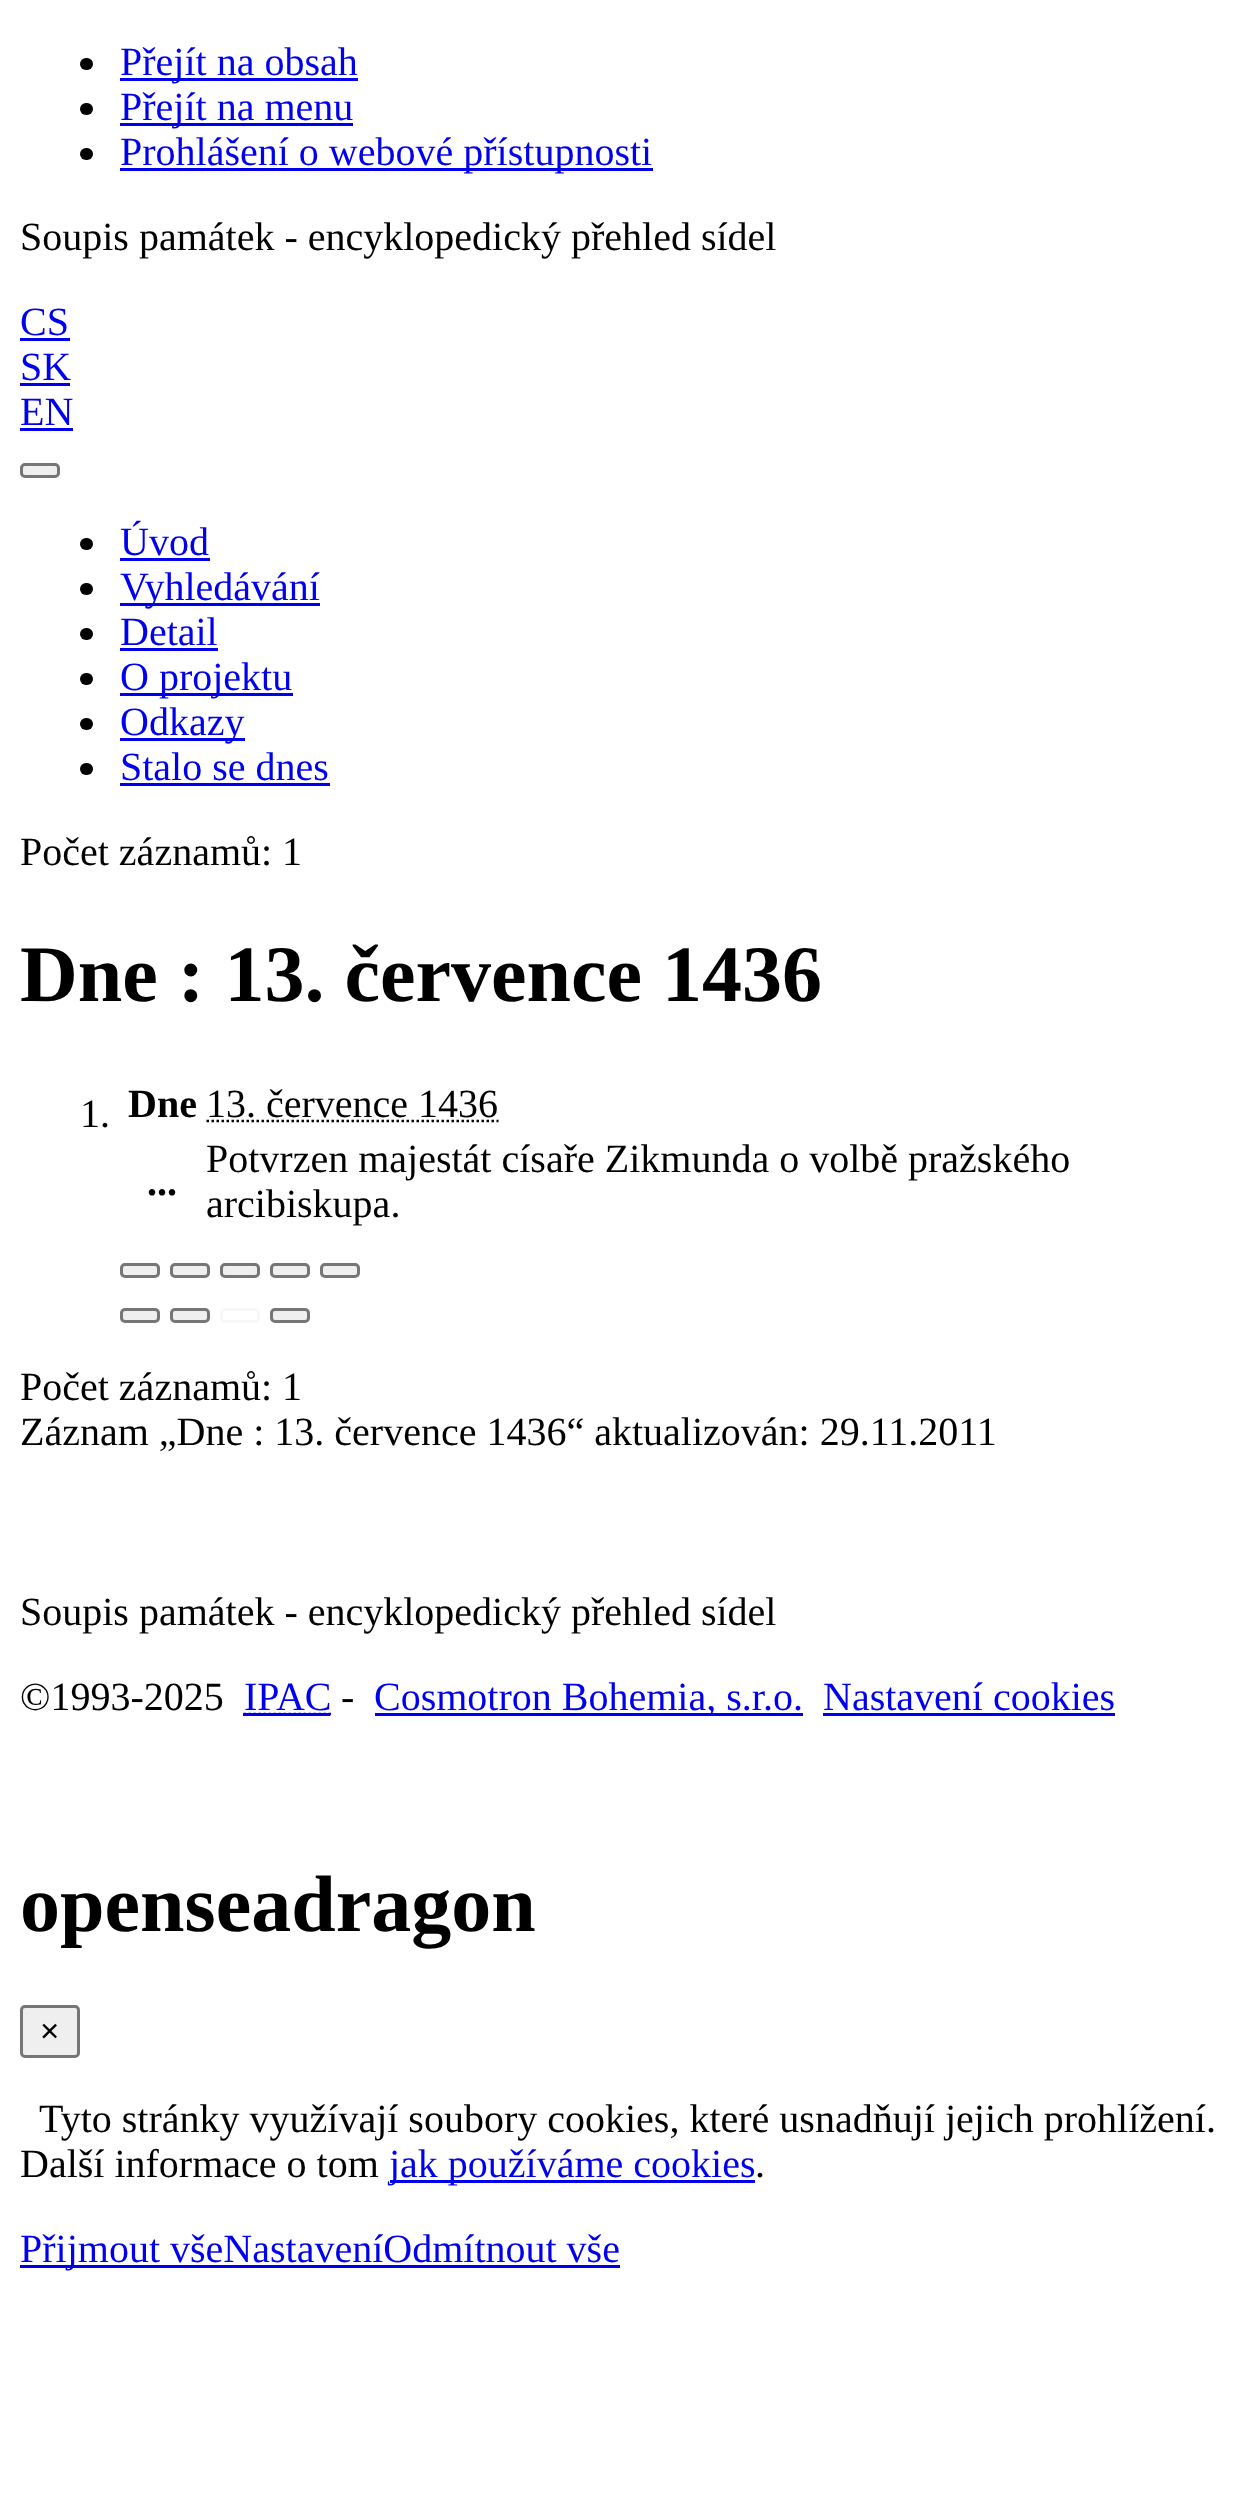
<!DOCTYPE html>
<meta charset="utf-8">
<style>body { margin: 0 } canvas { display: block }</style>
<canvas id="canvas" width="1253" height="2493"></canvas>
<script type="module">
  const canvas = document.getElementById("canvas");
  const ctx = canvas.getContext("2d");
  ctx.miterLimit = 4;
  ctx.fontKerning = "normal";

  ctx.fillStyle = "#ffffff";
  ctx.fillRect(0, 0, 1253, 2493);
  ctx.fillStyle = "#000000";
  ctx.beginPath();
  ctx.roundRect(80, 58, 13, 12, 6);
  ctx.fill();
  ctx.fillStyle = "#0000ee";
  ctx.fillRect(120, 78, 238, 3);
  ctx.font = "40px Liberation Serif";
  ctx.fillText("Přejít na obsah", 120, 75);
  ctx.fillStyle = "#000000";
  ctx.beginPath();
  ctx.roundRect(80, 103, 13, 12, 6);
  ctx.fill();
  ctx.fillStyle = "#0000ee";
  ctx.fillRect(120, 123, 233, 3);
  ctx.fillText("Přejít na menu", 120, 120);
  ctx.fillStyle = "#000000";
  ctx.beginPath();
  ctx.roundRect(80, 148, 13, 12, 6);
  ctx.fill();
  ctx.fillStyle = "#0000ee";
  ctx.fillRect(120, 168, 533, 3);
  ctx.fillText("Prohlášení o webové přístupnosti", 120, 165);
  ctx.fillStyle = "#000000";
  ctx.fillText("Soupis památek - encyklopedický přehled sídel", 20, 250);
  ctx.fillStyle = "#0000ee";
  ctx.fillText("CS", 20, 335);
  ctx.fillRect(20, 338, 50, 3);
  ctx.fillText("SK", 20, 380);
  ctx.fillRect(20, 383, 50, 3);
  ctx.fillText("EN", 20, 425);
  ctx.fillRect(20, 428, 53, 3);
  ctx.fillStyle = "#efefef";
  ctx.beginPath();
  ctx.roundRect(21.5, 464.5, 37, 12, 3.5);
  ctx.fill();
  ctx.strokeStyle = "#767676";
  ctx.lineWidth = 3;
  ctx.stroke();
  ctx.fillStyle = "#000000";
  ctx.beginPath();
  ctx.roundRect(80, 538, 13, 12, 6);
  ctx.fill();
  ctx.fillStyle = "#0000ee";
  ctx.fillText("Úvod", 120, 555);
  ctx.fillRect(120, 558, 90, 3);
  ctx.fillStyle = "#000000";
  ctx.beginPath();
  ctx.roundRect(80, 583, 13, 12, 6);
  ctx.fill();
  ctx.fillStyle = "#0000ee";
  ctx.fillRect(120, 603, 200, 3);
  ctx.fillText("Vyhledávání", 120, 600);
  ctx.fillStyle = "#000000";
  ctx.beginPath();
  ctx.roundRect(80, 628, 13, 12, 6);
  ctx.fill();
  ctx.fillStyle = "#0000ee";
  ctx.fillText("Detail", 120, 645);
  ctx.fillRect(120, 648, 98, 3);
  ctx.fillStyle = "#000000";
  ctx.beginPath();
  ctx.roundRect(80, 673, 13, 12, 6);
  ctx.fill();
  ctx.fillStyle = "#0000ee";
  ctx.fillRect(120, 693, 173, 3);
  ctx.fillText("O projektu", 120, 690);
  ctx.fillStyle = "#000000";
  ctx.beginPath();
  ctx.roundRect(80, 718, 13, 12, 6);
  ctx.fill();
  ctx.fillStyle = "#0000ee";
  ctx.fillRect(120, 738, 125, 3);
  ctx.fillText("Odkazy", 120, 735);
  ctx.fillStyle = "#000000";
  ctx.beginPath();
  ctx.roundRect(80, 763, 13, 12, 6);
  ctx.fill();
  ctx.fillStyle = "#0000ee";
  ctx.fillText("Stalo se dnes", 120, 780);
  ctx.fillRect(120, 783, 210, 3);
  ctx.fillStyle = "#000000";
  ctx.fillText("Počet záznamů: 1", 20, 865);
  ctx.font = "bold 80px Liberation Serif";
  ctx.fillText("Dne : 13. července 1436", 20, 1001);
  ctx.font = "40px Liberation Serif";
  ctx.fillText("1.", 80, 1127);
  ctx.font = "bold 40px Liberation Serif";
  ctx.fillText("Dne", 128, 1117);
  ctx.font = "40px Liberation Serif";
  ctx.fillText("13. července 1436", 206, 1117);
  ctx.beginPath();
  ctx.moveTo(206.5, 1121);
  ctx.lineTo(498.5, 1121);
  ctx.strokeStyle = "#000000";
  ctx.lineWidth = 2.5;
  ctx.setLineDash([2.5, 2.5]);
  ctx.stroke();
  ctx.font = "bold 40px Liberation Serif";
  ctx.fillText("...", 147, 1195);
  ctx.font = "40px Liberation Serif";
  ctx.fillText("Potvrzen majestát císaře Zikmunda o volbě pražského", 206, 1172);
  ctx.fillText("arcibiskupa.", 206, 1217);
  ctx.fillStyle = "#efefef";
  ctx.beginPath();
  ctx.roundRect(121.5, 1264.5, 37, 12, 3.5);
  ctx.fill();
  ctx.strokeStyle = "#767676";
  ctx.lineWidth = 3;
  ctx.setLineDash([]);
  ctx.stroke();
  ctx.beginPath();
  ctx.roundRect(171.5, 1264.5, 37, 12, 3.5);
  ctx.fill();
  ctx.stroke();
  ctx.beginPath();
  ctx.roundRect(221.5, 1264.5, 37, 12, 3.5);
  ctx.fill();
  ctx.stroke();
  ctx.beginPath();
  ctx.roundRect(271.5, 1264.5, 37, 12, 3.5);
  ctx.fill();
  ctx.stroke();
  ctx.beginPath();
  ctx.roundRect(321.5, 1264.5, 37, 12, 3.5);
  ctx.fill();
  ctx.stroke();
  ctx.beginPath();
  ctx.roundRect(121.5, 1309.5, 37, 12, 3.5);
  ctx.fill();
  ctx.stroke();
  ctx.beginPath();
  ctx.roundRect(171.5, 1309.5, 37, 12, 3.5);
  ctx.fill();
  ctx.stroke();
  ctx.beginPath();
  ctx.roundRect(221.5, 1309.5, 37, 12, 3.5);
  ctx.strokeStyle = "#f7f7f7";
  ctx.stroke();
  ctx.beginPath();
  ctx.roundRect(271.5, 1309.5, 37, 12, 3.5);
  ctx.fill();
  ctx.strokeStyle = "#767676";
  ctx.stroke();
  ctx.fillStyle = "#000000";
  ctx.fillText("Počet záznamů: 1", 20, 1400);
  ctx.fillText("Záznam „Dne : 13. července 1436“ aktualizován: 29.11.2011", 20, 1445);
  ctx.fillText("Soupis památek - encyklopedický přehled sídel", 20, 1625);
  ctx.fillText("©1993-2025", 20, 1710);
  ctx.fillStyle = "#0000ee";
  ctx.fillText("IPAC", 244, 1710);
  ctx.beginPath();
  ctx.moveTo(243.5, 1714);
  ctx.lineTo(331, 1714);
  ctx.strokeStyle = "#0000ee";
  ctx.lineWidth = 2.5;
  ctx.setLineDash([2.5, 2.5]);
  ctx.stroke();
  ctx.fillRect(243, 1713, 87, 3);
  ctx.fillStyle = "#000000";
  ctx.fillText("-", 341, 1710);
  ctx.fillStyle = "#0000ee";
  ctx.fillRect(375, 1713, 428, 3);
  ctx.fillText("Cosmotron Bohemia, s.r.o.", 374, 1710);
  ctx.fillText("Nastavení cookies", 823, 1710);
  ctx.fillRect(823, 1713, 292, 3);
  ctx.font = "bold 80px Liberation Serif";
  ctx.fillStyle = "#000000";
  ctx.fillText("openseadragon", 20, 1931);
  ctx.fillStyle = "#efefef";
  ctx.beginPath();
  ctx.roundRect(21.5, 2006.5, 57, 50, 3.5);
  ctx.fill();
  ctx.strokeStyle = "#767676";
  ctx.lineWidth = 3;
  ctx.setLineDash([]);
  ctx.stroke();
  ctx.font = "33px Liberation Sans";
  ctx.fillStyle = "#000000";
  ctx.fillText("×", 40, 2042);
  ctx.font = "40px Liberation Serif";
  ctx.fillText("Tyto stránky využívají soubory cookies, které usnadňují jejich prohlížení.", 39, 2132);
  ctx.fillText("Další informace o tom", 20, 2177);
  ctx.fillStyle = "#0000ee";
  ctx.fillRect(390, 2180, 365, 3);
  ctx.fillText("jak používáme cookies", 389, 2177);
  ctx.fillStyle = "#000000";
  ctx.fillText(".", 755, 2177);
  ctx.fillStyle = "#0000ee";
  ctx.fillRect(20, 2265, 600, 3);
  ctx.fillText("Přijmout všeNastaveníOdmítnout vše", 20, 2262);
</script>
